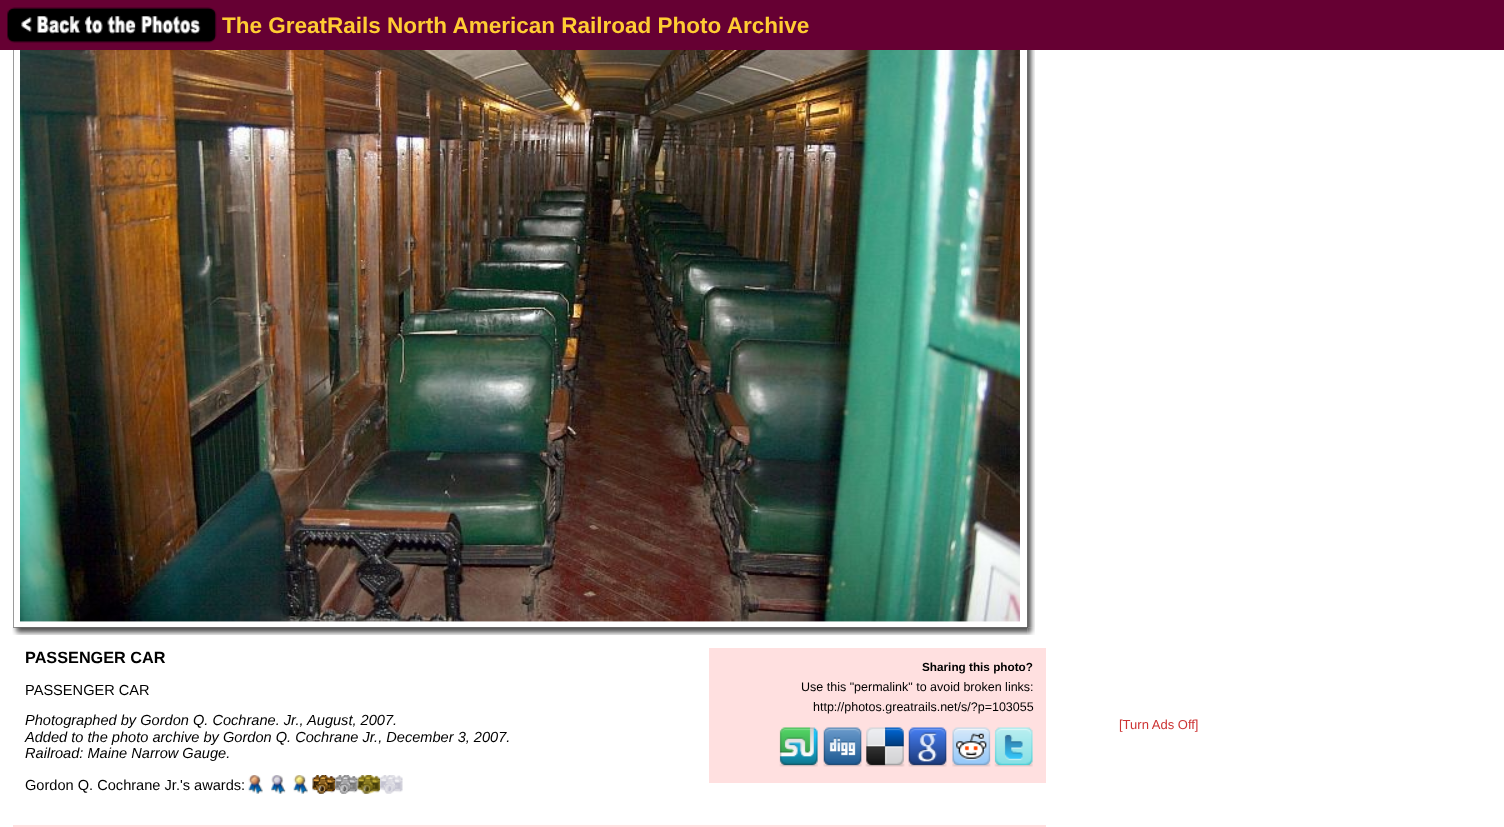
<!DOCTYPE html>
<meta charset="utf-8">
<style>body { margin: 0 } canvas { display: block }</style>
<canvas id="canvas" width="1504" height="827"></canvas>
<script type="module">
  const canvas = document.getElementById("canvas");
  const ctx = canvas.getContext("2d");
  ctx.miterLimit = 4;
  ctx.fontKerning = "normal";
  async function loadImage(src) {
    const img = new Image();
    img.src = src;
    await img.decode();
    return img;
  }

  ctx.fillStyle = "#ffffff";
  ctx.fillRect(0, 0, 1504, 827);
  ctx.strokeStyle = "#9a9a9a";
  ctx.strokeRect(13.5, -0.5, 1014, 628);
  ctx.fillStyle = "#660033";
  ctx.fillRect(0, 0, 1504, 50);
  ctx.drawImage(await loadImage("img1.png"), 7, 7, 210, 36);
  ctx.font = "bold 22.5px Liberation Sans";
  ctx.fillStyle = "#ffcc33";
  ctx.fillText("The GreatRails North American Railroad Photo Archive", 222, 33);
  ctx.drawImage(await loadImage("img2.png"), 20, 50, 1000, 572);
  ctx.drawImage(await loadImage("img3.png"), 20, 621, 1000, 1);
  ctx.drawImage(await loadImage("img4.png"), 1027, 50, 8, 578);
  ctx.drawImage(await loadImage("img5.png"), 12, 627, 1016, 8);
  ctx.drawImage(await loadImage("img6.png"), 1027, 627, 8, 8);
  ctx.font = "bold 16.25px Liberation Sans";
  ctx.fillStyle = "#000000";
  ctx.fillText("PASSENGER CAR", 25, 663);
  ctx.font = "14.6px Liberation Sans";
  ctx.fillText("PASSENGER CAR", 25, 695);
  ctx.font = "italic 14.6px Liberation Sans";
  ctx.fillText("Photographed by Gordon Q. Cochrane. Jr., August, 2007.", 25, 725);
  ctx.fillText("Added to the photo archive by Gordon Q. Cochrane Jr., December 3, 2007.", 25, 742);
  ctx.fillText("Railroad: Maine Narrow Gauge.", 25, 758);
  ctx.font = "14.6px Liberation Sans";
  ctx.fillText("Gordon Q. Cochrane Jr.'s awards:", 25, 790);
  ctx.drawImage(await loadImage("img7.png"), 248, 775, 15, 19);
  ctx.drawImage(await loadImage("img8.png"), 271, 775, 15, 19);
  ctx.drawImage(await loadImage("img9.png"), 293, 775, 15, 19);
  ctx.drawImage(await loadImage("img10.png"), 312, 775, 23, 19);
  ctx.drawImage(await loadImage("img11.png"), 335, 775, 23, 19);
  ctx.drawImage(await loadImage("img12.png"), 357, 775, 23, 19);
  ctx.drawImage(await loadImage("img13.png"), 380, 775, 23, 19);
  ctx.fillStyle = "#ffe0e0";
  ctx.fillRect(709, 648, 337, 135);
  ctx.font = "bold 11.75px Liberation Sans";
  ctx.fillStyle = "#000000";
  ctx.fillText("Sharing this photo?", 922, 671);
  ctx.font = "12.5px Liberation Sans";
  ctx.fillText("Use this \"permalink\" to avoid broken links:", 801, 691);
  ctx.fillText("http://photos.greatrails.net/s/?p=103055", 813, 711);
  ctx.drawImage(await loadImage("img14.png"), 779, 727, 39, 40);
  ctx.drawImage(await loadImage("img15.png"), 823, 727, 39, 40);
  ctx.drawImage(await loadImage("img16.png"), 865, 727, 40, 40);
  ctx.drawImage(await loadImage("img17.png"), 908, 727, 39, 40);
  ctx.drawImage(await loadImage("img18.png"), 952, 727, 39, 40);
  ctx.drawImage(await loadImage("img19.png"), 994, 727, 39, 40);
  ctx.font = "13px Liberation Sans";
  ctx.fillStyle = "#cc3333";
  ctx.fillText("[Turn Ads Off]", 1119, 729);
  ctx.fillStyle = "#ffe0e0";
  ctx.fillRect(13, 825, 1033, 2);
</script>
